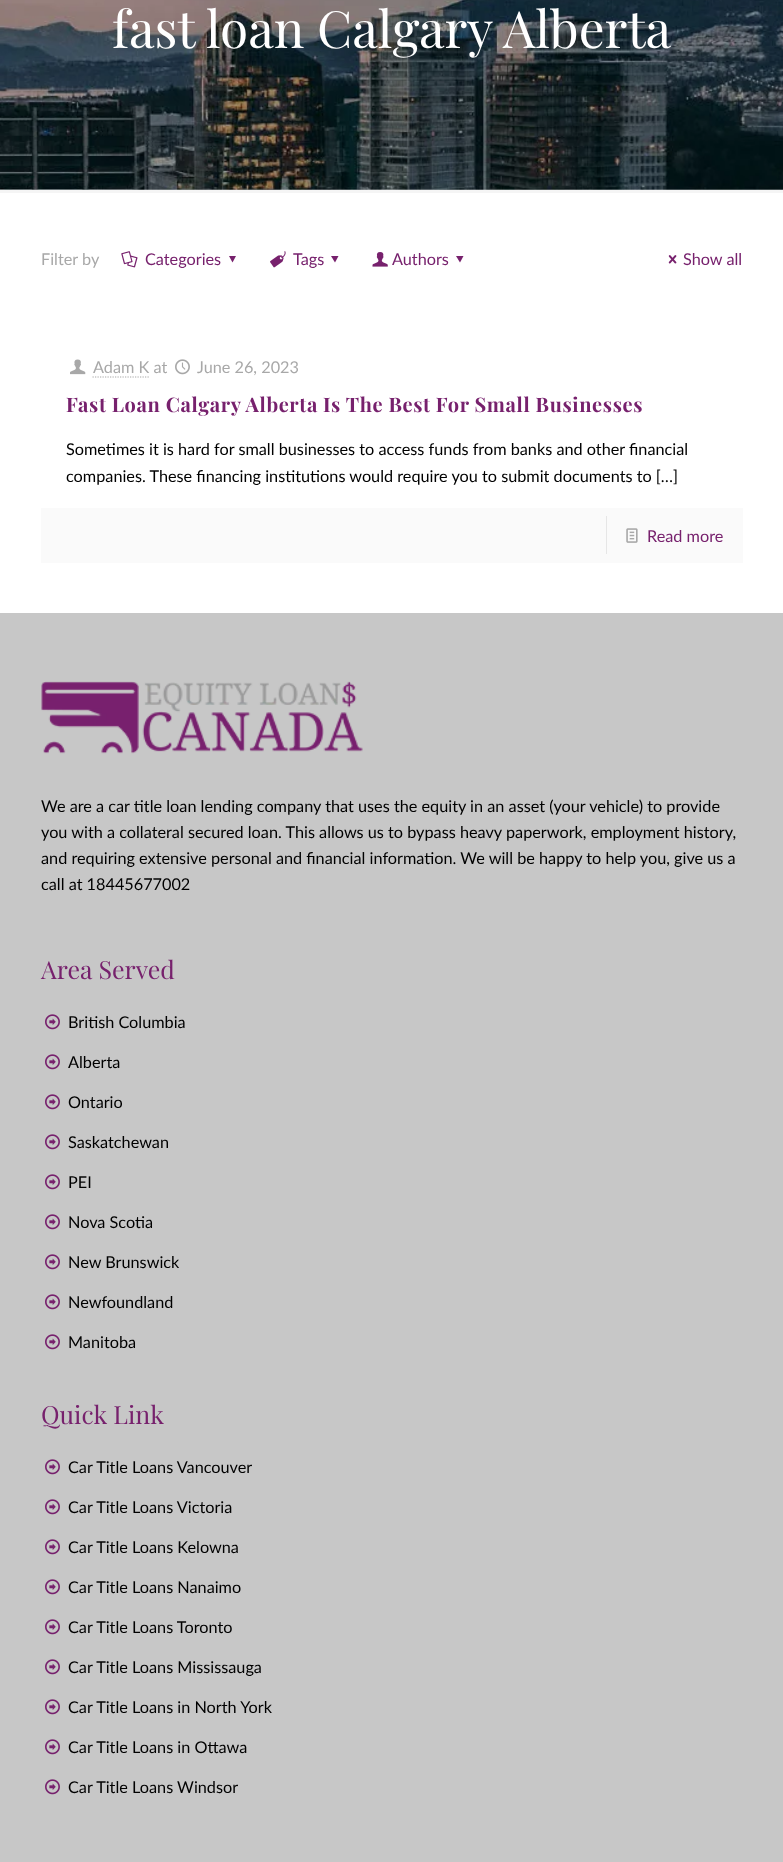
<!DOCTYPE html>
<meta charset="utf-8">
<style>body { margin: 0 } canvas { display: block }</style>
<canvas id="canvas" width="783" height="1862"></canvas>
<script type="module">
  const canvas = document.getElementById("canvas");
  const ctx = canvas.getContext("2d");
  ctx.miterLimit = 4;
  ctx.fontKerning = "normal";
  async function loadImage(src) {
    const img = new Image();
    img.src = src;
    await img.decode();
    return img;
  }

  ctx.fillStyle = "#ffffff";
  ctx.fillRect(0, 0, 783, 1862);
  ctx.drawImage(await loadImage("img1.png"), 0, 0, 783, 190);
  ctx.font = "51.25px Playfair Display";
  ctx.fillText("fast loan Calgary Alberta", 112, 48);
  ctx.fillStyle = "#f5f5f5";
  ctx.fillRect(0, 190, 783, 3);
  ctx.font = "16.25px Lato";
  ctx.fillStyle = "#a8a8a8";
  ctx.fillText("Filter by", 41, 265);
  ctx.drawImage(await loadImage("img2.png"), 121, 251, 17, 17);
  ctx.fillStyle = "#77216d";
  ctx.fillText("Categories", 145, 265);
  ctx.beginPath();
  ctx.moveTo(236, 256);
  ctx.lineTo(232.5, 262.5);
  ctx.lineTo(229, 256);
  ctx.closePath();
  ctx.fill();
  ctx.drawImage(await loadImage("img3.png"), 270, 251, 16, 17);
  ctx.fillText("Tags", 293, 265);
  ctx.beginPath();
  ctx.moveTo(338.5, 256);
  ctx.lineTo(335, 262.5);
  ctx.lineTo(331, 256);
  ctx.closePath();
  ctx.fill();
  ctx.drawImage(await loadImage("img4.png"), 372, 252, 16, 15);
  ctx.fillText("Authors", 392, 265);
  ctx.beginPath();
  ctx.moveTo(463.5, 256);
  ctx.lineTo(460, 262.5);
  ctx.lineTo(456, 256);
  ctx.closePath();
  ctx.fill();
  ctx.drawImage(await loadImage("img5.png"), 668, 255, 9, 9);
  ctx.fillText("Show all", 683, 265);
  ctx.drawImage(await loadImage("img6.png"), 70, 359, 16, 16);
  ctx.fillStyle = "#a8a8a8";
  ctx.fillText("Adam K at", 93, 373);
  ctx.beginPath();
  ctx.moveTo(92.5, 377);
  ctx.lineTo(149, 377);
  ctx.strokeStyle = "#a8a8a8";
  ctx.lineWidth = 1.2;
  ctx.setLineDash([1.25, 1.25]);
  ctx.stroke();
  ctx.drawImage(await loadImage("img7.png"), 175, 359, 15, 16);
  ctx.fillText("June 26, 2023", 197, 373);
  ctx.letterSpacing = "0.62px";
  ctx.font = "bold 20px Playfair Display";
  ctx.fillStyle = "#77216d";
  ctx.fillText("Fast Loan Calgary Alberta Is The Best For Small Businesses", 66, 412);
  ctx.letterSpacing = "0px";
  ctx.font = "16.25px Lato";
  ctx.fillStyle = "#000000";
  ctx.fillText("Sometimes it is hard for small businesses to access funds from banks and other financial", 66, 455);
  ctx.fillText("companies. These financing institutions would require you to submit documents to […]", 66, 482);
  ctx.fillStyle = "#fafafa";
  ctx.fillRect(41, 508, 702, 55);
  ctx.fillStyle = "#e6e6e6";
  ctx.fillRect(606, 516, 1, 38);
  ctx.drawImage(await loadImage("img8.png"), 626, 528, 12, 15);
  ctx.fillStyle = "#77216d";
  ctx.fillText("Read more", 647, 542);
  ctx.fillStyle = "#c7c7c7";
  ctx.fillRect(0, 613, 783, 1249);
  ctx.drawImage(await loadImage("img9.png"), 41, 681, 322, 73);
  ctx.fillStyle = "#000000";
  ctx.fillText("We are a car title loan lending company that uses the equity in an asset (your vehicle) to provide", 41, 812);
  ctx.fillText("you with a collateral secured loan. This allows us to bypass heavy paperwork, employment history,", 41, 838);
  ctx.fillText("and requiring extensive personal and financial information. We will be happy to help you, give us a", 41, 864);
  ctx.fillText("call at 18445677002", 41, 890);
  ctx.font = "25px Playfair Display";
  ctx.fillStyle = "#77216d";
  ctx.fillText("Area Served", 41, 979);
  ctx.drawImage(await loadImage("img10.png"), 45, 1014, 15, 16);
  ctx.font = "16.25px Lato";
  ctx.fillStyle = "#000000";
  ctx.fillText("British Columbia", 68, 1028);
  ctx.drawImage(await loadImage("img10.png"), 45, 1054, 15, 16);
  ctx.fillText("Alberta", 68, 1068);
  ctx.drawImage(await loadImage("img10.png"), 45, 1094, 15, 16);
  ctx.fillText("Ontario", 68, 1108);
  ctx.drawImage(await loadImage("img10.png"), 45, 1134, 15, 16);
  ctx.fillText("Saskatchewan", 68, 1148);
  ctx.drawImage(await loadImage("img10.png"), 45, 1174, 15, 16);
  ctx.fillText("PEI", 68, 1188);
  ctx.drawImage(await loadImage("img10.png"), 45, 1214, 15, 16);
  ctx.fillText("Nova Scotia", 68, 1228);
  ctx.drawImage(await loadImage("img10.png"), 45, 1254, 15, 16);
  ctx.fillText("New Brunswick", 68, 1268);
  ctx.drawImage(await loadImage("img10.png"), 45, 1294, 15, 16);
  ctx.fillText("Newfoundland", 68, 1308);
  ctx.drawImage(await loadImage("img10.png"), 45, 1334, 15, 16);
  ctx.fillText("Manitoba", 68, 1348);
  ctx.font = "25px Playfair Display";
  ctx.fillStyle = "#77216d";
  ctx.fillText("Quick Link", 41, 1424);
  ctx.drawImage(await loadImage("img10.png"), 45, 1459, 15, 16);
  ctx.font = "16.25px Lato";
  ctx.fillStyle = "#000000";
  ctx.fillText("Car Title Loans Vancouver", 68, 1473);
  ctx.drawImage(await loadImage("img10.png"), 45, 1499, 15, 16);
  ctx.fillText("Car Title Loans Victoria", 68, 1513);
  ctx.drawImage(await loadImage("img10.png"), 45, 1539, 15, 16);
  ctx.fillText("Car Title Loans Kelowna", 68, 1553);
  ctx.drawImage(await loadImage("img10.png"), 45, 1579, 15, 16);
  ctx.fillText("Car Title Loans Nanaimo", 68, 1593);
  ctx.drawImage(await loadImage("img10.png"), 45, 1619, 15, 16);
  ctx.fillText("Car Title Loans Toronto", 68, 1633);
  ctx.drawImage(await loadImage("img10.png"), 45, 1659, 15, 16);
  ctx.fillText("Car Title Loans Mississauga", 68, 1673);
  ctx.drawImage(await loadImage("img10.png"), 45, 1699, 15, 16);
  ctx.fillText("Car Title Loans in North York", 68, 1713);
  ctx.drawImage(await loadImage("img10.png"), 45, 1739, 15, 16);
  ctx.fillText("Car Title Loans in Ottawa", 68, 1753);
  ctx.drawImage(await loadImage("img10.png"), 45, 1779, 15, 16);
  ctx.fillText("Car Title Loans Windsor", 68, 1793);
</script>
